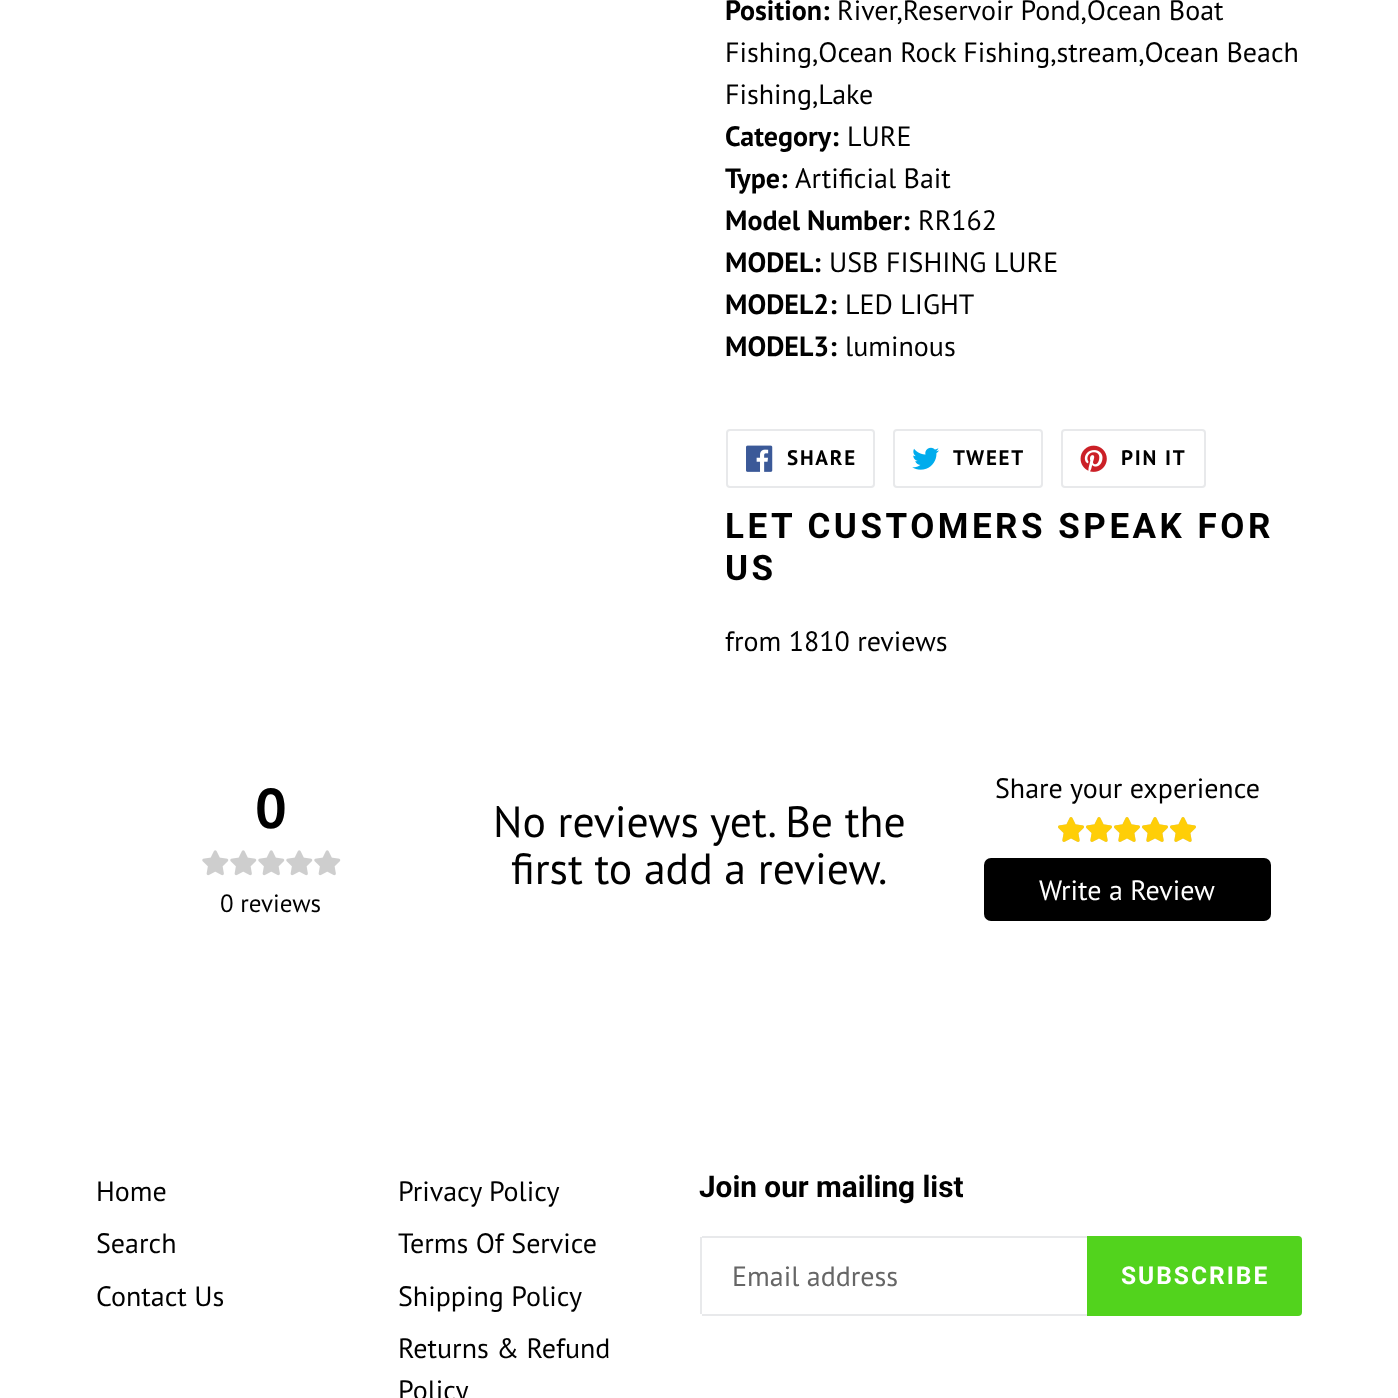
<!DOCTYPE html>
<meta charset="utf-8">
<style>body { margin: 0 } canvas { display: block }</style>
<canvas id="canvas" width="1398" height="1398"></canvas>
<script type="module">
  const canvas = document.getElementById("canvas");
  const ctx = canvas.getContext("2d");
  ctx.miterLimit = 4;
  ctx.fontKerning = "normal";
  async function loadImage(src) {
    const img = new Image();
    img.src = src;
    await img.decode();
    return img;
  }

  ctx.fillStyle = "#ffffff";
  ctx.fillRect(0, 0, 1398, 1398);
  ctx.font = "bold 28px PT Sans";
  ctx.fillStyle = "#000000";
  ctx.fillText("Position:", 725, 20);
  ctx.font = "28px PT Sans";
  ctx.fillText("River,Reservoir Pond,Ocean Boat", 837, 20);
  ctx.fillText("Fishing,Ocean Rock Fishing,stream,Ocean Beach", 725, 62);
  ctx.fillText("Fishing,Lake", 725, 104);
  ctx.font = "bold 28px PT Sans";
  ctx.fillText("Category:", 725, 146);
  ctx.font = "28px PT Sans";
  ctx.fillText("LURE", 847, 146);
  ctx.font = "bold 28px PT Sans";
  ctx.fillText("Type:", 725, 188);
  ctx.font = "28px PT Sans";
  ctx.fillText("Artificial Bait", 795, 188);
  ctx.font = "bold 28px PT Sans";
  ctx.fillText("Model Number:", 725, 230);
  ctx.font = "28px PT Sans";
  ctx.fillText("RR162", 918, 230);
  ctx.font = "bold 28px PT Sans";
  ctx.fillText("MODEL:", 725, 272);
  ctx.font = "28px PT Sans";
  ctx.fillText("USB FISHING LURE", 829, 272);
  ctx.font = "bold 28px PT Sans";
  ctx.fillText("MODEL2:", 725, 314);
  ctx.font = "28px PT Sans";
  ctx.fillText("LED LIGHT", 845, 314);
  ctx.font = "bold 28px PT Sans";
  ctx.fillText("MODEL3:", 725, 356);
  ctx.font = "28px PT Sans";
  ctx.fillText("luminous", 845, 356);
  ctx.beginPath();
  ctx.roundRect(727, 430, 147, 57, 3);
  ctx.strokeStyle = "#e8e9eb";
  ctx.lineWidth = 2;
  ctx.stroke();
  ctx.drawImage(await loadImage("img1.png"), 746, 445, 27, 27);
  ctx.letterSpacing = "1.75px";
  ctx.font = "bold 21px PT Sans";
  ctx.fillText("SHARE", 787, 465);
  ctx.beginPath();
  ctx.roundRect(894, 430, 148, 57, 3);
  ctx.stroke();
  ctx.drawImage(await loadImage("img2.png"), 912, 447, 27, 23);
  ctx.fillText("TWEET", 953, 465);
  ctx.beginPath();
  ctx.roundRect(1062, 430, 143, 57, 3);
  ctx.stroke();
  ctx.drawImage(await loadImage("img3.png"), 1080, 445, 27, 27);
  ctx.fillText("PIN IT", 1121, 465);
  ctx.letterSpacing = "3.5px";
  ctx.font = "bold 35px Roboto";
  ctx.fillText("LET CUSTOMERS SPEAK FOR", 725, 538);
  ctx.fillText("US", 725, 580);
  ctx.letterSpacing = "0px";
  ctx.font = "28px PT Sans";
  ctx.fillText("from 1810 reviews", 725, 651);
  ctx.font = "bold 56px PT Sans";
  ctx.fillText("0", 255, 828);
  ctx.drawImage(await loadImage("img4.png"), 202, 850, 27, 26);
  ctx.drawImage(await loadImage("img4.png"), 230, 850, 27, 26);
  ctx.drawImage(await loadImage("img4.png"), 258, 850, 27, 26);
  ctx.drawImage(await loadImage("img4.png"), 286, 850, 27, 26);
  ctx.drawImage(await loadImage("img4.png"), 314, 850, 27, 26);
  ctx.font = "25px PT Sans";
  ctx.fillText("0 reviews", 220, 912);
  ctx.font = "43.75px PT Sans";
  ctx.fillText("No reviews yet. Be the", 493, 837);
  ctx.fillText("first to add a review.", 511, 884);
  ctx.font = "28px PT Sans";
  ctx.fillText("Share your experience", 995, 798);
  ctx.drawImage(await loadImage("img5.png"), 1058, 817, 26, 25);
  ctx.drawImage(await loadImage("img5.png"), 1086, 817, 26, 25);
  ctx.drawImage(await loadImage("img5.png"), 1114, 817, 26, 25);
  ctx.drawImage(await loadImage("img5.png"), 1142, 817, 26, 25);
  ctx.drawImage(await loadImage("img5.png"), 1170, 817, 26, 25);
  ctx.drawImage(await loadImage("img6.png"), 1058, 817, 26, 25);
  ctx.drawImage(await loadImage("img6.png"), 1086, 817, 26, 25);
  ctx.drawImage(await loadImage("img6.png"), 1114, 817, 26, 25);
  ctx.drawImage(await loadImage("img6.png"), 1142, 817, 26, 25);
  ctx.drawImage(await loadImage("img6.png"), 1170, 817, 26, 25);
  ctx.beginPath();
  ctx.roundRect(984, 858, 287, 63, 7);
  ctx.fill();
  ctx.fillStyle = "#ffffff";
  ctx.fillText("Write a Review", 1039, 900);
  ctx.fillStyle = "#000000";
  ctx.fillText("Home", 96, 1201);
  ctx.fillText("Search", 96, 1253);
  ctx.fillText("Contact Us", 96, 1306);
  ctx.fillText("Privacy Policy", 398, 1201);
  ctx.fillText("Terms Of Service", 398, 1253);
  ctx.fillText("Shipping Policy", 398, 1306);
  ctx.fillText("Returns & Refund", 398, 1358);
  ctx.fillText("Policy", 398, 1400);
  ctx.font = "bold 29.75px Roboto";
  ctx.fillText("Join our mailing list", 699, 1197);
  ctx.fillStyle = "#e8e9eb";
  ctx.fillRect(702, 1236, 385, 2);
  ctx.fillRect(702, 1314, 385, 2);
  ctx.fillRect(700, 1237, 2, 77);
  ctx.font = "28px PT Sans";
  ctx.fillStyle = "#666666";
  ctx.fillText("Email address", 732, 1286);
  ctx.fillStyle = "#52d31d";
  ctx.beginPath();
  ctx.roundRect(1087, 1236, 215, 80, [0, 4, 4, 0]);
  ctx.fill();
  ctx.letterSpacing = "2px";
  ctx.font = "bold 24.5px Roboto";
  ctx.fillStyle = "#ffffff";
  ctx.fillText("SUBSCRIBE", 1121, 1284);
</script>
